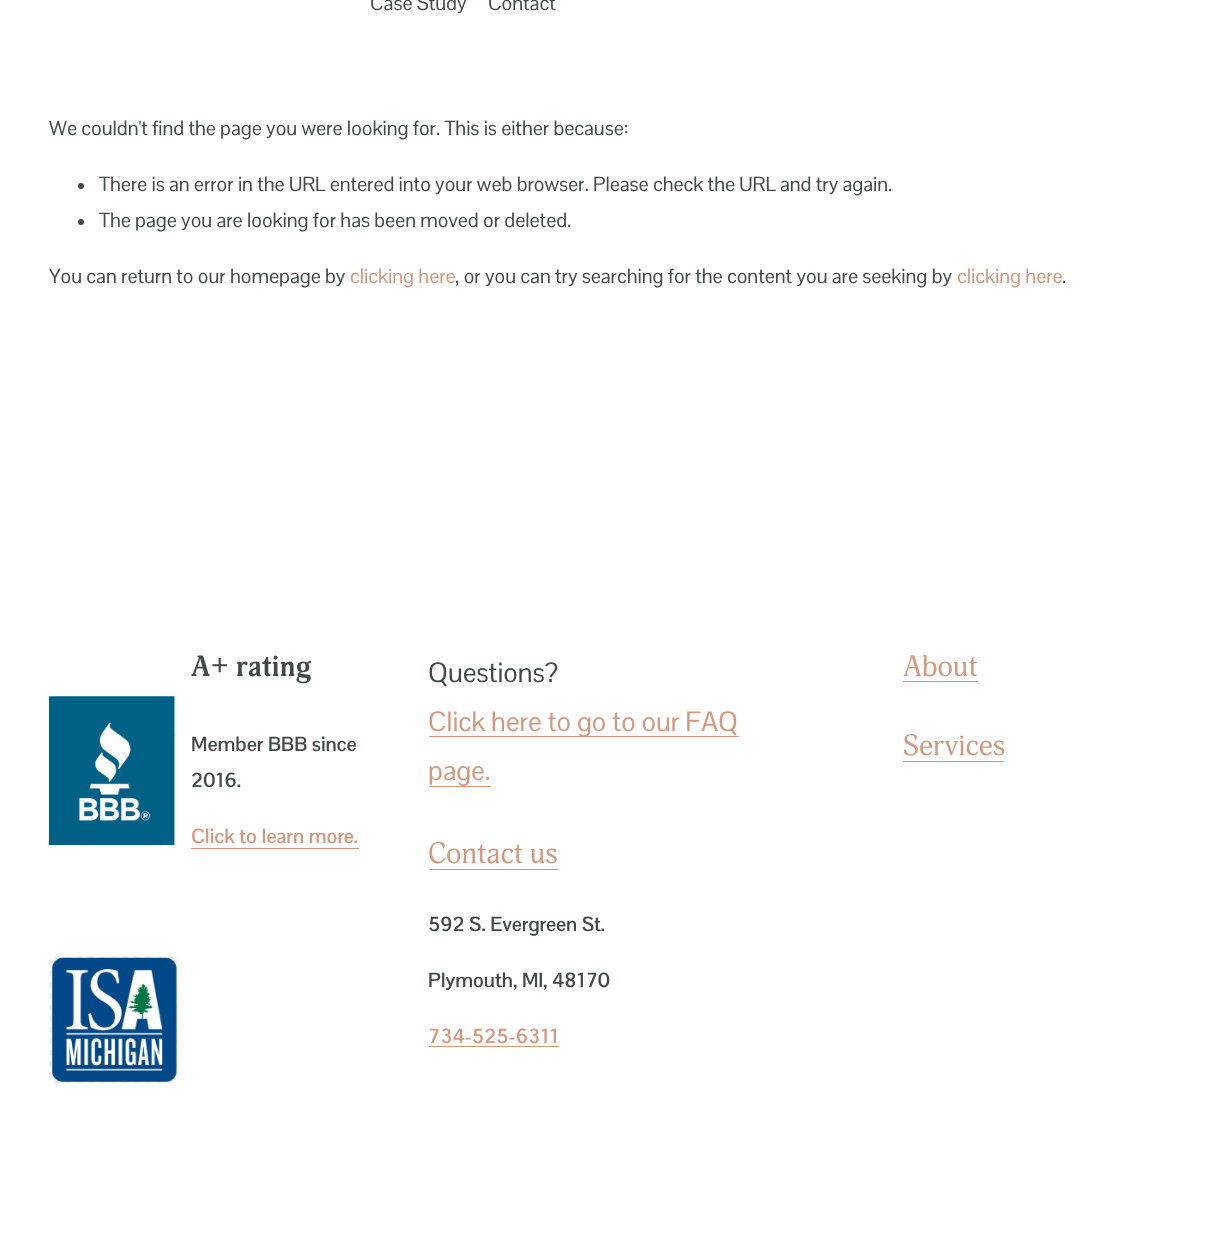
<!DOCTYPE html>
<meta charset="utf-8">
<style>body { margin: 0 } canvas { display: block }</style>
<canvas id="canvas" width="1222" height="1247"></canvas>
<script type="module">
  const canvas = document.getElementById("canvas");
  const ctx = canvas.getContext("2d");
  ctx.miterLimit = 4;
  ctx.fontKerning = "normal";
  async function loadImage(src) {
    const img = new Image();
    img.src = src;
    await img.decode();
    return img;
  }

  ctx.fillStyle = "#ffffff";
  ctx.fillRect(0, 0, 1222, 1247);
  ctx.font = "20px Pontano Sans";
  ctx.fillStyle = "#3f4a49";
  ctx.fillText("Case Study", 370, 10);
  ctx.fillText("Contact", 488, 10);
  ctx.fillText("We couldn't find the page you were looking for. This is either because:", 49, 135);
  ctx.beginPath();
  ctx.arc(81, 186, 3, 0, Math.PI * 2);
  ctx.fill();
  ctx.fillText("There is an error in the URL entered into your web browser. Please check the URL and try again.", 99, 191);
  ctx.beginPath();
  ctx.arc(81, 222, 3, 0, Math.PI * 2);
  ctx.fill();
  ctx.fillText("The page you are looking for has been moved or deleted.", 99, 227);
  ctx.fillText("You can return to our homepage by", 49, 283);
  ctx.fillStyle = "#d4967d";
  ctx.fillText("clicking here", 350, 283);
  ctx.fillStyle = "#3f4a49";
  ctx.fillText(", or you can try searching for the content you are seeking by", 455, 283);
  ctx.fillStyle = "#d4967d";
  ctx.fillText("clicking here", 957, 283);
  ctx.fillStyle = "#3f4a49";
  ctx.fillText(".", 1062, 283);
  ctx.drawImage(await loadImage("img1.png"), 48, 696, 130, 149);
  ctx.font = "bold 29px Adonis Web";
  ctx.fillText("A+ rating", 191, 676);
  ctx.font = "bold 20px Pontano Sans";
  ctx.fillText("Member BBB since", 191, 751);
  ctx.fillText("2016.", 191, 787);
  ctx.fillStyle = "#d4967d";
  ctx.fillText("Click to learn more.", 191, 843);
  ctx.fillRect(191, 848, 168, 1);
  ctx.font = "27.25px Pontano Sans";
  ctx.fillStyle = "#3f4a49";
  ctx.fillText("Questions?", 428, 682);
  ctx.fillStyle = "#d4967d";
  ctx.fillRect(429, 736, 310, 1);
  ctx.fillText("Click here to go to our FAQ", 428, 731);
  ctx.fillText("page.", 428, 780);
  ctx.fillRect(429, 786, 62, 1);
  ctx.font = "29px Adonis Web";
  ctx.fillText("Contact us", 428, 863);
  ctx.fillRect(429, 869, 129, 1);
  ctx.fillText("About", 903, 676);
  ctx.fillRect(903, 681, 75, 1);
  ctx.fillText("Services", 903, 755);
  ctx.fillRect(903, 761, 101, 1);
  ctx.drawImage(await loadImage("img2.png"), 49, 956, 129, 128);
  ctx.font = "bold 20px Pontano Sans";
  ctx.fillStyle = "#3f4a49";
  ctx.fillText("592 S. Evergreen St.", 428, 931);
  ctx.fillText("Plymouth, MI, 48170", 428, 987);
  ctx.fillStyle = "#d4967d";
  ctx.fillText("734-525-6311", 428, 1043);
  ctx.fillRect(429, 1046, 130, 1);
</script>
